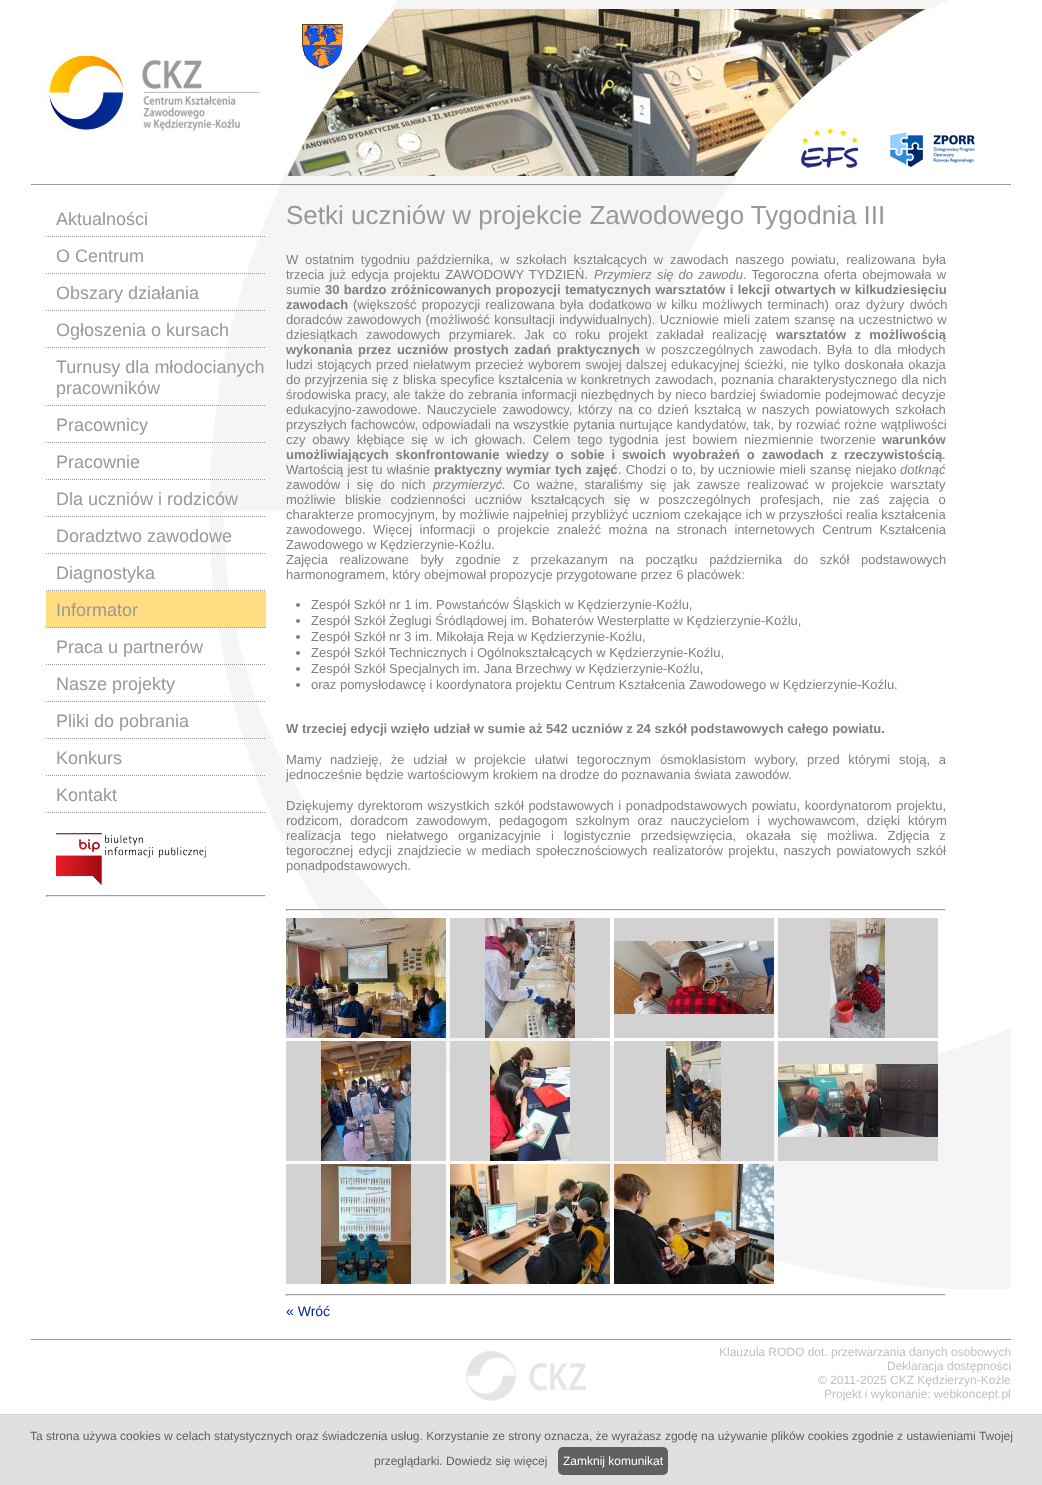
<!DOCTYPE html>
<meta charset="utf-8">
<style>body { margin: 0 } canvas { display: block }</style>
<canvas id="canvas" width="1042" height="1485"></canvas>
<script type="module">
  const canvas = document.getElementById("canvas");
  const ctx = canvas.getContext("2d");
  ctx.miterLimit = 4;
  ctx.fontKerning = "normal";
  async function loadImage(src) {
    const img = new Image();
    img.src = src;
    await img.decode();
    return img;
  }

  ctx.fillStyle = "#ffffff";
  ctx.fillRect(0, 0, 1042, 1485);
  ctx.fillStyle = "#999999";
  ctx.fillRect(31, 184, 980, 1);
  ctx.drawImage(await loadImage("img1.png"), 43, 50, 217, 82);
  ctx.drawImage(await loadImage("img2.png"), 280, 0, 700, 184);
  ctx.drawImage(await loadImage("img3.png"), 287, 9, 639, 167);
  ctx.drawImage(await loadImage("img4.png"), 287, 9, 693, 167);
  ctx.drawImage(await loadImage("img5.png"), 209, 185, 802, 1105);
  ctx.beginPath();
  ctx.moveTo(46, 236.5);
  ctx.lineTo(266, 236.5);
  ctx.strokeStyle = "#999999";
  ctx.setLineDash([1, 1]);
  ctx.stroke();
  ctx.font = "18px Liberation Sans";
  ctx.fillText("Aktualności", 56, 225);
  ctx.beginPath();
  ctx.moveTo(46, 273.5);
  ctx.lineTo(266, 273.5);
  ctx.stroke();
  ctx.fillText("O Centrum", 56, 262);
  ctx.beginPath();
  ctx.moveTo(46, 310.5);
  ctx.lineTo(266, 310.5);
  ctx.stroke();
  ctx.fillText("Obszary działania", 56, 299);
  ctx.beginPath();
  ctx.moveTo(46, 347.5);
  ctx.lineTo(266, 347.5);
  ctx.stroke();
  ctx.fillText("Ogłoszenia o kursach", 56, 336);
  ctx.beginPath();
  ctx.moveTo(46, 405.5);
  ctx.lineTo(266, 405.5);
  ctx.stroke();
  ctx.fillText("Turnusy dla młodocianych", 56, 373);
  ctx.fillText("pracowników", 56, 394);
  ctx.beginPath();
  ctx.moveTo(46, 442.5);
  ctx.lineTo(266, 442.5);
  ctx.stroke();
  ctx.fillText("Pracownicy", 56, 431);
  ctx.beginPath();
  ctx.moveTo(46, 479.5);
  ctx.lineTo(266, 479.5);
  ctx.stroke();
  ctx.fillText("Pracownie", 56, 468);
  ctx.beginPath();
  ctx.moveTo(46, 516.5);
  ctx.lineTo(266, 516.5);
  ctx.stroke();
  ctx.fillText("Dla uczniów i rodziców", 56, 505);
  ctx.beginPath();
  ctx.moveTo(46, 553.5);
  ctx.lineTo(266, 553.5);
  ctx.stroke();
  ctx.fillText("Doradztwo zawodowe", 56, 542);
  ctx.beginPath();
  ctx.moveTo(46, 590.5);
  ctx.lineTo(266, 590.5);
  ctx.stroke();
  ctx.fillText("Diagnostyka", 56, 579);
  ctx.fillStyle = "#ffdd80";
  ctx.fillRect(46, 591, 220, 37);
  ctx.beginPath();
  ctx.moveTo(46, 627.5);
  ctx.lineTo(266, 627.5);
  ctx.stroke();
  ctx.fillStyle = "#999999";
  ctx.fillText("Informator", 56, 616);
  ctx.beginPath();
  ctx.moveTo(46, 664.5);
  ctx.lineTo(266, 664.5);
  ctx.stroke();
  ctx.fillText("Praca u partnerów", 56, 653);
  ctx.beginPath();
  ctx.moveTo(46, 701.5);
  ctx.lineTo(266, 701.5);
  ctx.stroke();
  ctx.fillText("Nasze projekty", 56, 690);
  ctx.beginPath();
  ctx.moveTo(46, 738.5);
  ctx.lineTo(266, 738.5);
  ctx.stroke();
  ctx.fillText("Pliki do pobrania", 56, 727);
  ctx.beginPath();
  ctx.moveTo(46, 775.5);
  ctx.lineTo(266, 775.5);
  ctx.stroke();
  ctx.fillText("Konkurs", 56, 764);
  ctx.beginPath();
  ctx.moveTo(46, 812.5);
  ctx.lineTo(266, 812.5);
  ctx.stroke();
  ctx.fillText("Kontakt", 56, 801);
  ctx.drawImage(await loadImage("img6.png"), 56, 833, 150, 53);
  ctx.fillStyle = "#9f9f9f";
  ctx.fillRect(46, 895, 220, 1);
  ctx.fillStyle = "#eeeeee";
  ctx.fillRect(265, 895, 1, 2);
  ctx.fillRect(46, 896, 220, 1);
  ctx.fillStyle = "#9f9f9f";
  ctx.fillRect(46, 895, 1, 2);
  ctx.font = "26px Liberation Sans";
  ctx.fillStyle = "#999999";
  ctx.fillText("Setki uczniów w projekcie Zawodowego Tygodnia III", 286, 224);
  ctx.wordSpacing = "3.1px";
  ctx.font = "13px Liberation Sans";
  ctx.fillStyle = "#808080";
  ctx.fillText("W ostatnim tygodniu października, w szkołach kształcących w zawodach naszego powiatu, realizowana była", 286, 264);
  ctx.wordSpacing = "1.5px";
  ctx.fillText("trzecia już edycja projektu ZAWODOWY TYDZIEŃ.", 286, 279);
  ctx.font = "italic 13px Liberation Sans";
  ctx.fillText("Przymierz się do zawodu", 594, 279);
  ctx.font = "13px Liberation Sans";
  ctx.fillText(". Tegoroczna oferta obejmowała w", 743, 279);
  ctx.wordSpacing = "0px";
  ctx.fillText("sumie", 286, 294);
  ctx.wordSpacing = "0.75px";
  ctx.font = "bold 13px Liberation Sans";
  ctx.fillText("30 bardzo zróżnicowanych propozycji tematycznych warsztatów i lekcji otwartych w kilkudziesięciu", 325, 294);
  ctx.wordSpacing = "0px";
  ctx.fillText("zawodach", 286, 309);
  ctx.wordSpacing = "1.5px";
  ctx.font = "13px Liberation Sans";
  ctx.fillText("(większość propozycji realizowana była dodatkowo w kilku możliwych terminach)", 353, 309);
  ctx.wordSpacing = "2px";
  ctx.fillText("oraz dyżury dwóch", 835, 309);
  ctx.wordSpacing = "0.75px";
  ctx.fillText("doradców zawodowych (możliwość konsultacji indywidualnych). Uczniowie mieli zatem szansę na uczestnictwo w", 286, 324);
  ctx.wordSpacing = "4.75px";
  ctx.fillText("dziesiątkach zawodowych przymiarek. Jak co roku projekt zakładał realizację", 286, 339);
  ctx.font = "bold 13px Liberation Sans";
  ctx.fillText("warsztatów z możliwością", 776, 339);
  ctx.wordSpacing = "2px";
  ctx.fillText("wykonania przez uczniów prostych zadań praktycznych", 286, 354);
  ctx.font = "13px Liberation Sans";
  ctx.fillText("w poszczególnych zawodach. Była to dla młodych", 646, 354);
  ctx.wordSpacing = "0.9px";
  ctx.fillText("ludzi stojących przed niełatwym przecież wyborem swojej dalszej edukacyjnej ścieżki, nie tylko doskonała okazja", 286, 369);
  ctx.wordSpacing = "0.5px";
  ctx.fillText("do przyjrzenia się z bliska specyfice kształcenia w konkretnych zawodach, poznania charakterystycznego dla nich", 286, 384);
  ctx.wordSpacing = "0.25px";
  ctx.fillText("środowiska pracy, ale także do zebrania informacji niezbędnych by nieco bardziej świadomie podejmować decyzje", 286, 399);
  ctx.wordSpacing = "2px";
  ctx.fillText("edukacyjno-zawodowe. Nauczyciele zawodowcy, którzy na co dzień kształcą w naszych powiatowych szkołach", 286, 414);
  ctx.wordSpacing = "0.5px";
  ctx.fillText("przyszłych fachowców, odpowiadali na wszystkie pytania nurtujące kandydatów, tak, by rozwiać rożne wątpliwości", 286, 429);
  ctx.wordSpacing = "3.25px";
  ctx.fillText("czy obawy kłębiące się w ich głowach. Celem tego tygodnia jest bowiem niezmiennie tworzenie", 286, 444);
  ctx.wordSpacing = "0px";
  ctx.font = "bold 13px Liberation Sans";
  ctx.fillText("warunków", 882, 444);
  ctx.wordSpacing = "3.25px";
  ctx.fillText("umożliwiających skonfrontowanie wiedzy o sobie i swoich wyobrażeń o zawodach z rzeczywistością", 286, 459);
  ctx.wordSpacing = "0px";
  ctx.font = "13px Liberation Sans";
  ctx.fillText(".", 942, 459);
  ctx.wordSpacing = "0.5px";
  ctx.fillText("Wartością jest tu właśnie", 286, 474);
  ctx.font = "bold 13px Liberation Sans";
  ctx.fillText("praktyczny wymiar tych zajęć", 434, 474);
  ctx.font = "13px Liberation Sans";
  ctx.fillText(". Chodzi o to, by uczniowie mieli szansę niejako", 618, 474);
  ctx.wordSpacing = "0px";
  ctx.font = "italic 13px Liberation Sans";
  ctx.fillText("dotknąć", 900, 474);
  ctx.wordSpacing = "3.25px";
  ctx.font = "13px Liberation Sans";
  ctx.fillText("zawodów i się do nich", 286, 489);
  ctx.wordSpacing = "0px";
  ctx.font = "italic 13px Liberation Sans";
  ctx.fillText("przymierzyć.", 433, 489);
  ctx.wordSpacing = "3.25px";
  ctx.font = "13px Liberation Sans";
  ctx.fillText("Co ważne, staraliśmy się jak zawsze realizować w projekcie warsztaty", 513, 489);
  ctx.wordSpacing = "5.6px";
  ctx.fillText("możliwie bliskie codzienności uczniów kształcących się w poszczególnych profesjach, nie zaś zajęcia o", 286, 504);
  ctx.wordSpacing = "0px";
  ctx.fillText("charakterze promocyjnym, by możliwie najpełniej przybliżyć uczniom czekające ich w przyszłości realia kształcenia", 286, 519);
  ctx.wordSpacing = "3.9px";
  ctx.fillText("zawodowego. Więcej informacji o projekcie znaleźć można na stronach internetowych Centrum Kształcenia", 286, 534);
  ctx.wordSpacing = "0px";
  ctx.fillText("Zawodowego w Kędzierzynie-Koźlu.", 286, 549);
  ctx.wordSpacing = "8px";
  ctx.fillText("Zajęcia realizowane były zgodnie z przekazanym na początku października do szkół podstawowych", 286, 564);
  ctx.wordSpacing = "0px";
  ctx.fillText("harmonogramem, który obejmował propozycje przygotowane przez 6 placówek:", 286, 579);
  ctx.beginPath();
  ctx.arc(298, 605, 2, 0, Math.PI * 2);
  ctx.fill();
  ctx.fillText("Zespół Szkół nr 1 im. Powstańców Śląskich w Kędzierzynie-Koźlu,", 311, 609);
  ctx.beginPath();
  ctx.arc(298, 621, 2, 0, Math.PI * 2);
  ctx.fill();
  ctx.fillText("Zespół Szkół Żeglugi Śródlądowej im. Bohaterów Westerplatte w Kędzierzynie-Koźlu,", 311, 625);
  ctx.beginPath();
  ctx.arc(298, 637, 2, 0, Math.PI * 2);
  ctx.fill();
  ctx.fillText("Zespół Szkół nr 3 im. Mikołaja Reja w Kędzierzynie-Koźlu,", 311, 641);
  ctx.beginPath();
  ctx.arc(298, 653, 2, 0, Math.PI * 2);
  ctx.fill();
  ctx.fillText("Zespół Szkół Technicznych i Ogólnokształcących w Kędzierzynie-Koźlu,", 311, 657);
  ctx.beginPath();
  ctx.arc(298, 669, 2, 0, Math.PI * 2);
  ctx.fill();
  ctx.fillText("Zespół Szkół Specjalnych im. Jana Brzechwy w Kędzierzynie-Koźlu,", 311, 673);
  ctx.beginPath();
  ctx.arc(298, 685, 2, 0, Math.PI * 2);
  ctx.fill();
  ctx.fillText("oraz pomysłodawcę i koordynatora projektu Centrum Kształcenia Zawodowego w Kędzierzynie-Koźlu.", 311, 689);
  ctx.font = "bold 13px Liberation Sans";
  ctx.fillText("W trzeciej edycji wzięło udział w sumie aż 542 uczniów z 24 szkół podstawowych całego powiatu.", 286, 733);
  ctx.wordSpacing = "5.1px";
  ctx.font = "13px Liberation Sans";
  ctx.fillText("Mamy nadzieję, że udział w projekcie ułatwi tegorocznym ósmoklasistom wybory, przed którymi stoją, a", 286, 764);
  ctx.wordSpacing = "0px";
  ctx.fillText("jednocześnie będzie wartościowym krokiem na drodze do poznawania świata zawodów.", 286, 779);
  ctx.wordSpacing = "1px";
  ctx.fillText("Dziękujemy dyrektorom wszystkich szkół podstawowych i ponadpodstawowych powiatu, koordynatorom projektu,", 286, 810);
  ctx.wordSpacing = "4.25px";
  ctx.fillText("rodzicom, doradcom zawodowym, pedagogom szkolnym oraz nauczycielom i wychowawcom, dzięki którym", 286, 825);
  ctx.wordSpacing = "6.25px";
  ctx.fillText("realizacja tego niełatwego organizacyjnie i logistycznie przedsięwzięcia, okazała się możliwa. Zdjęcia z", 286, 840);
  ctx.wordSpacing = "1.75px";
  ctx.fillText("tegorocznej edycji znajdziecie w mediach społecznościowych realizatorów projektu, naszych powiatowych szkół", 286, 855);
  ctx.wordSpacing = "0px";
  ctx.fillText("ponadpodstawowych.", 286, 870);
  ctx.fillStyle = "#9f9f9f";
  ctx.fillRect(286, 909, 660, 1);
  ctx.fillStyle = "#eeeeee";
  ctx.fillRect(945, 909, 1, 2);
  ctx.fillRect(286, 910, 660, 1);
  ctx.fillStyle = "#9f9f9f";
  ctx.fillRect(286, 909, 1, 2);
  ctx.drawImage(await loadImage("img7.png"), 286, 918, 160, 120);
  ctx.drawImage(await loadImage("img8.png"), 450, 918, 160, 120);
  ctx.drawImage(await loadImage("img9.png"), 614, 918, 160, 120);
  ctx.drawImage(await loadImage("img10.png"), 778, 918, 160, 120);
  ctx.drawImage(await loadImage("img11.png"), 286, 1041, 160, 120);
  ctx.drawImage(await loadImage("img12.png"), 450, 1041, 160, 120);
  ctx.drawImage(await loadImage("img13.png"), 614, 1041, 160, 120);
  ctx.drawImage(await loadImage("img14.png"), 778, 1041, 160, 120);
  ctx.drawImage(await loadImage("img15.png"), 286, 1164, 160, 120);
  ctx.drawImage(await loadImage("img16.png"), 450, 1164, 160, 120);
  ctx.drawImage(await loadImage("img17.png"), 614, 1164, 160, 120);
  ctx.fillRect(286, 1294, 660, 1);
  ctx.fillStyle = "#eeeeee";
  ctx.fillRect(945, 1294, 1, 2);
  ctx.fillRect(286, 1295, 660, 1);
  ctx.fillStyle = "#9f9f9f";
  ctx.fillRect(286, 1294, 1, 2);
  ctx.font = "14px Liberation Sans";
  ctx.fillStyle = "#00278d";
  ctx.fillText("« Wróć", 286, 1316);
  ctx.drawImage(await loadImage("img18.png"), 466, 1351, 120, 50);
  ctx.fillStyle = "#999999";
  ctx.fillRect(31, 1339, 980, 1);
  ctx.font = "12px Liberation Sans";
  ctx.fillStyle = "#c0c0c0";
  ctx.fillText("Klauzula RODO dot. przetwarzania danych osobowych", 719, 1356);
  ctx.fillText("Deklaracja dostępności", 887, 1370);
  ctx.fillText("© 2011-2025 CKZ Kędzierzyn-Koźle", 818, 1384);
  ctx.fillText("Projekt i wykonanie: webkoncept.pl", 824, 1398);
  ctx.fillStyle = "#e0e0e0";
  ctx.fillRect(0, 1415, 1042, 70);
  ctx.fillStyle = "#d0d0d0";
  ctx.fillRect(0, 1414, 1042, 1);
  ctx.fillStyle = "#606060";
  ctx.fillText("Ta strona używa cookies w celach statystycznych oraz świadczenia usług. Korzystanie ze strony oznacza, że wyrażasz zgodę na używanie plików cookies zgodnie z ustawieniami Twojej", 30, 1440);
  ctx.fillText("przeglądarki. Dowiedz się więcej", 374, 1465);
  ctx.beginPath();
  ctx.roundRect(558, 1447, 110, 28, 5);
  ctx.fill();
  ctx.fillStyle = "#ffffff";
  ctx.fillText("Zamknij komunikat", 563, 1465);
</script>
